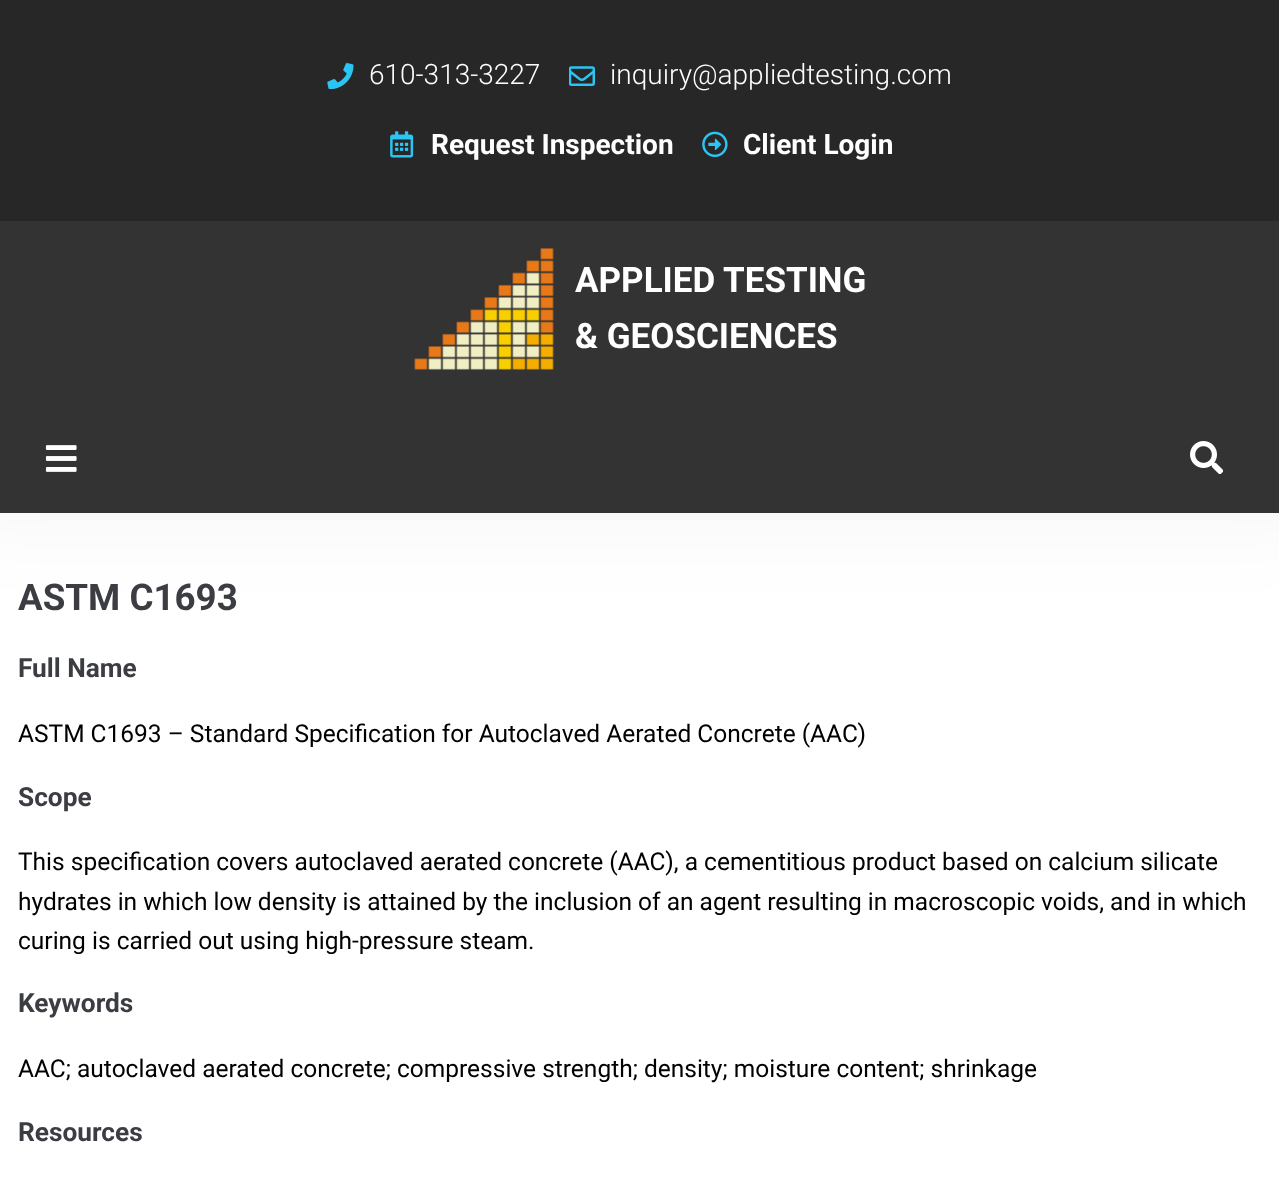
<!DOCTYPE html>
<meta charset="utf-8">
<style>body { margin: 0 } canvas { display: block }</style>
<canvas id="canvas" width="1279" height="1185"></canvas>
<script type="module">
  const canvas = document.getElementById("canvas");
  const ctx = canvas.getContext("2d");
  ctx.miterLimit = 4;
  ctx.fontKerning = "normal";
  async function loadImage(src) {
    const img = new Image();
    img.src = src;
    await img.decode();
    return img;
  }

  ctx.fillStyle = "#ffffff";
  ctx.fillRect(0, 0, 1279, 1185);
  ctx.fillStyle = "rgba(0, 0, 0, 0.25)";
  ctx.filter = "blur(87.5px)";
  ctx.beginPath();
  ctx.rect(-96, -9, 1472, 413);
  ctx.fill();
  ctx.filter = "none";
  ctx.fillStyle = "#272727";
  ctx.fillRect(0, 0, 1279, 221);
  ctx.drawImage(await loadImage("img1.png"), 327, 63, 27, 26);
  ctx.font = "300 28px Roboto";
  ctx.fillStyle = "#ffffff";
  ctx.fillText("610-313-3227", 369, 84);
  ctx.drawImage(await loadImage("img2.png"), 569, 66, 26, 20);
  ctx.fillText("inquiry@appliedtesting.com", 610, 84);
  ctx.drawImage(await loadImage("img3.png"), 390, 131, 24, 27);
  ctx.font = "bold 28px Roboto";
  ctx.fillText("Request Inspection", 431, 154);
  ctx.drawImage(await loadImage("img4.png"), 702, 131, 26, 27);
  ctx.fillText("Client Login", 743, 154);
  ctx.fillStyle = "#333333";
  ctx.fillRect(0, 221, 1279, 292);
  ctx.drawImage(await loadImage("img5.png"), 414, 248, 140, 122);
  ctx.font = "bold 35px Roboto";
  ctx.fillStyle = "#ffffff";
  ctx.fillText("APPLIED TESTING", 575, 292);
  ctx.fillText("& GEOSCIENCES", 575, 348);
  ctx.drawImage(await loadImage("img6.png"), 45, 445, 32, 27);
  ctx.drawImage(await loadImage("img7.png"), 1190, 441, 33, 33);
  ctx.font = "bold 36.75px Roboto";
  ctx.fillStyle = "#3b3d42";
  ctx.fillText("ASTM C1693", 18, 610);
  ctx.font = "bold 26.25px Roboto";
  ctx.fillText("Full Name", 18, 677);
  ctx.font = "24.5px Roboto";
  ctx.fillStyle = "#000000";
  ctx.fillText("ASTM C1693 – Standard Specification for Autoclaved Aerated Concrete (AAC)", 18, 742);
  ctx.font = "bold 26.25px Roboto";
  ctx.fillStyle = "#3b3d42";
  ctx.fillText("Scope", 18, 806);
  ctx.font = "24.5px Roboto";
  ctx.fillStyle = "#000000";
  ctx.fillText("This specification covers autoclaved aerated concrete (AAC), a cementitious product based on calcium silicate", 18, 870);
  ctx.fillText("hydrates in which low density is attained by the inclusion of an agent resulting in macroscopic voids, and in which", 18, 910);
  ctx.fillText("curing is carried out using high-pressure steam.", 18, 949);
  ctx.font = "bold 26.25px Roboto";
  ctx.fillStyle = "#3b3d42";
  ctx.fillText("Keywords", 18, 1012);
  ctx.font = "24.5px Roboto";
  ctx.fillStyle = "#000000";
  ctx.fillText("AAC; autoclaved aerated concrete; compressive strength; density; moisture content; shrinkage", 18, 1077);
  ctx.font = "bold 26.25px Roboto";
  ctx.fillStyle = "#3b3d42";
  ctx.fillText("Resources", 18, 1141);
</script>
